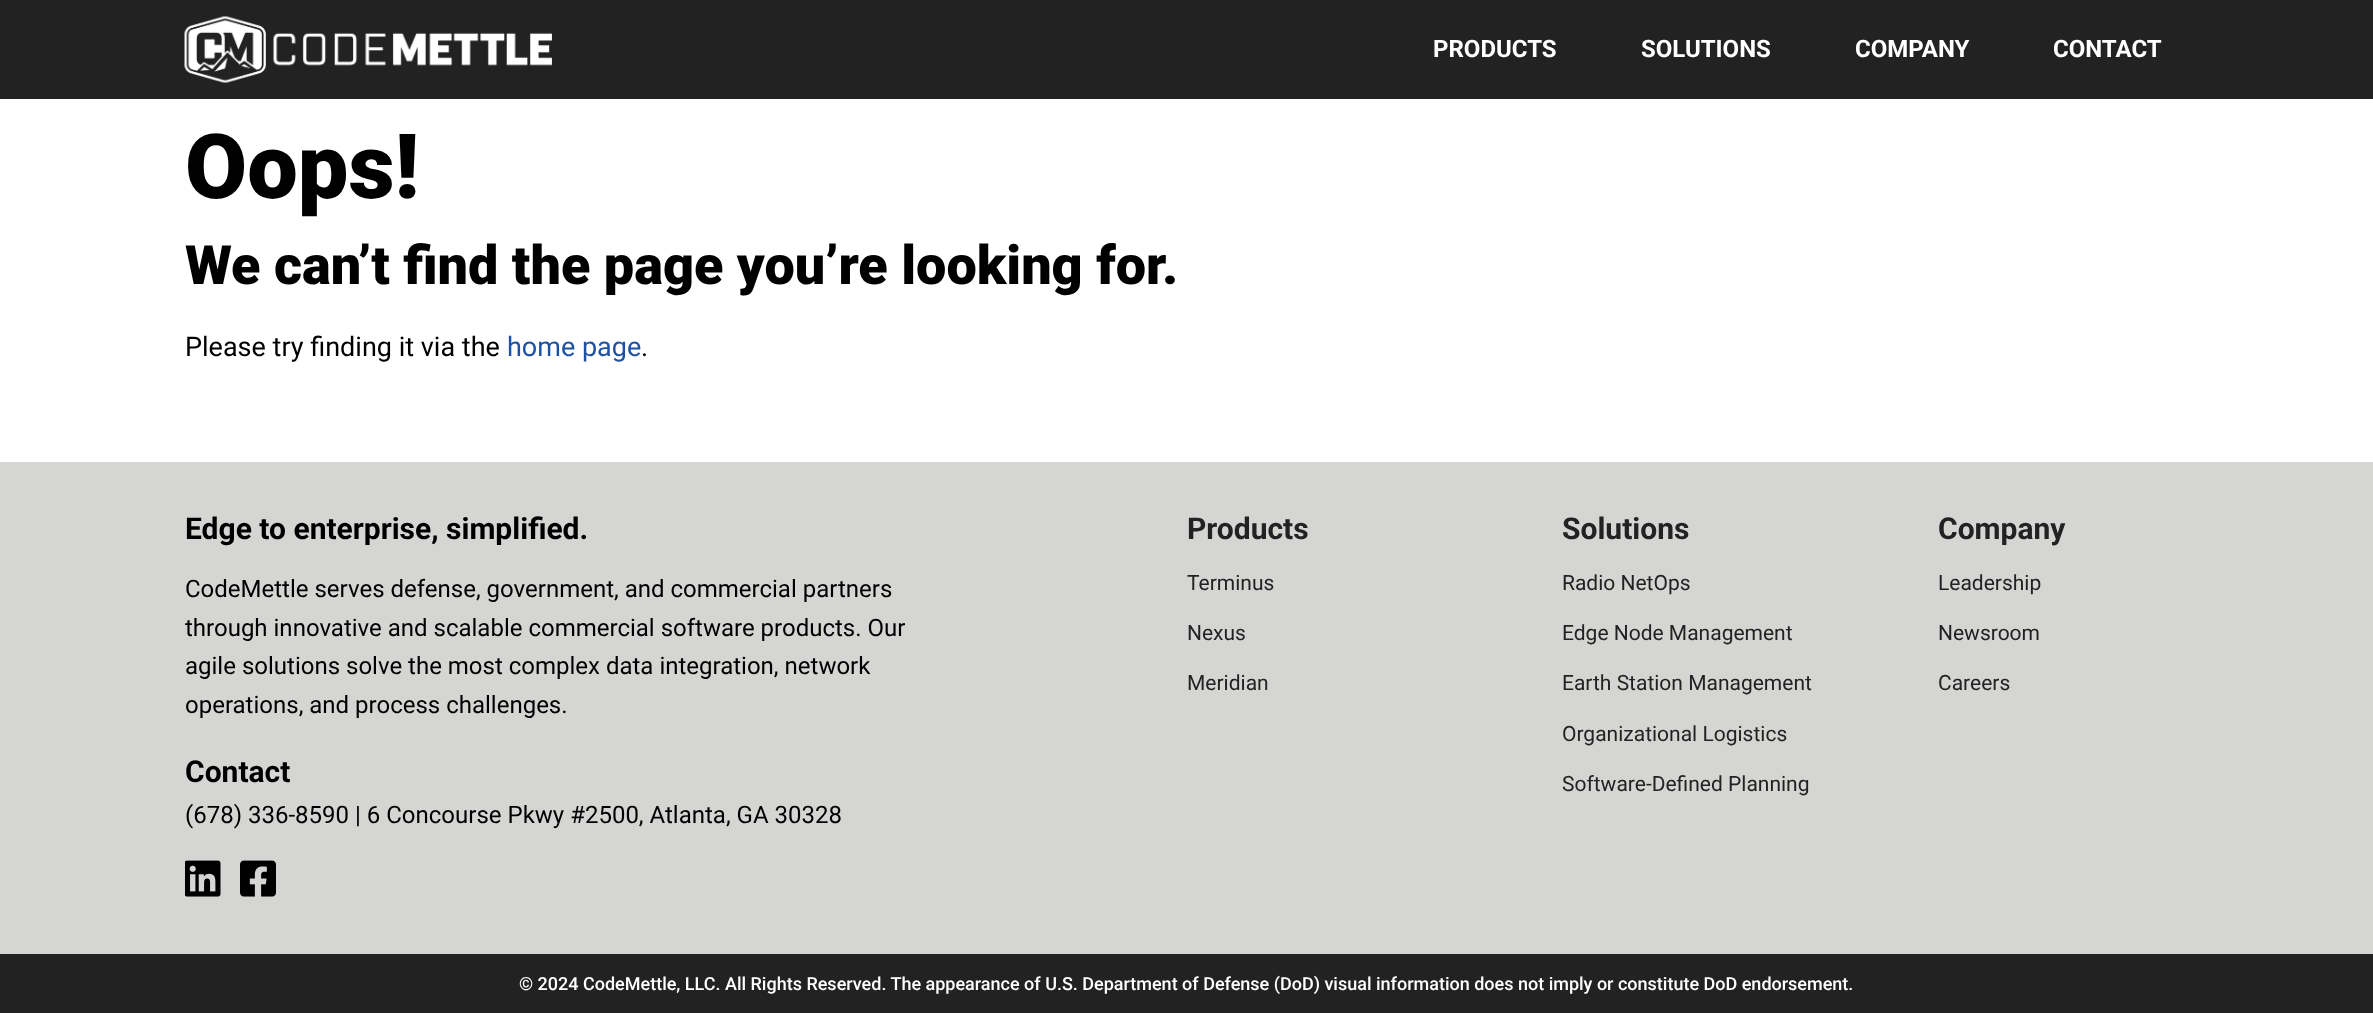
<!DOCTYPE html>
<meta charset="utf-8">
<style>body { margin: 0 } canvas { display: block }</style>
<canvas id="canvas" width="2373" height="1013"></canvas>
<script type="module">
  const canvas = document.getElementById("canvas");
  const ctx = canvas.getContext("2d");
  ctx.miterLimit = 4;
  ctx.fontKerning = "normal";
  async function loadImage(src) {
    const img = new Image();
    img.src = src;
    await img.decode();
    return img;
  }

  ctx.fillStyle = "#ffffff";
  ctx.fillRect(0, 0, 2373, 1013);
  ctx.fillStyle = "#222222";
  ctx.fillRect(0, 0, 2373, 99);
  ctx.drawImage(await loadImage("img1.png"), 184, 16, 368, 67);
  ctx.font = "bold 24px Roboto";
  ctx.fillStyle = "#ffffff";
  ctx.fillText("PRODUCTS", 1433, 57);
  ctx.fillText("SOLUTIONS", 1641, 57);
  ctx.fillText("COMPANY", 1855, 57);
  ctx.fillText("CONTACT", 2053, 57);
  ctx.font = "900 90px Roboto";
  ctx.fillStyle = "#000000";
  ctx.fillText("Oops!", 185, 198);
  ctx.font = "900 54px Roboto";
  ctx.fillText("We can’t find the page you’re looking for.", 185, 284);
  ctx.font = "27px Roboto";
  ctx.fillText("Please try finding it via the", 185, 356);
  ctx.fillStyle = "#1d51a3";
  ctx.fillText("home page", 507, 356);
  ctx.fillStyle = "#000000";
  ctx.fillText(".", 641, 356);
  ctx.fillStyle = "#d5d6d3";
  ctx.fillRect(0, 462, 2373, 492);
  ctx.font = "bold 30px Roboto";
  ctx.fillStyle = "#000000";
  ctx.fillText("Edge to enterprise, simplified.", 185, 539);
  ctx.font = "24px Roboto";
  ctx.fillText("CodeMettle serves defense, government, and commercial partners", 185, 597);
  ctx.fillText("through innovative and scalable commercial software products. Our", 185, 636);
  ctx.fillText("agile solutions solve the most complex data integration, network", 185, 674);
  ctx.fillText("operations, and process challenges.", 185, 713);
  ctx.font = "bold 30px Roboto";
  ctx.fillText("Contact", 185, 782);
  ctx.font = "24px Roboto";
  ctx.fillText("(678) 336-8590 | 6 Concourse Pkwy #2500, Atlanta, GA 30328", 185, 823);
  ctx.drawImage(await loadImage("img2.png"), 185, 860, 36, 37);
  ctx.drawImage(await loadImage("img3.png"), 240, 860, 36, 37);
  ctx.font = "bold 30px Roboto";
  ctx.fillStyle = "#222222";
  ctx.fillText("Products", 1187, 539);
  ctx.font = "21px Roboto";
  ctx.fillText("Terminus", 1187, 590);
  ctx.fillText("Nexus", 1187, 640);
  ctx.fillText("Meridian", 1187, 690);
  ctx.font = "bold 30px Roboto";
  ctx.fillText("Solutions", 1562, 539);
  ctx.font = "21px Roboto";
  ctx.fillText("Radio NetOps", 1562, 590);
  ctx.fillText("Edge Node Management", 1562, 640);
  ctx.fillText("Earth Station Management", 1562, 690);
  ctx.fillText("Organizational Logistics", 1562, 741);
  ctx.fillText("Software-Defined Planning", 1562, 791);
  ctx.font = "bold 30px Roboto";
  ctx.fillText("Company", 1938, 539);
  ctx.font = "21px Roboto";
  ctx.fillText("Leadership", 1938, 590);
  ctx.fillText("Newsroom", 1938, 640);
  ctx.fillText("Careers", 1938, 690);
  ctx.fillRect(0, 954, 2373, 59);
  ctx.font = "500 18px Roboto";
  ctx.fillStyle = "#ffffff";
  ctx.fillText("© 2024 CodeMettle, LLC. All Rights Reserved. The appearance of U.S. Department of Defense (DoD) visual information does not imply or constitute DoD endorsement.", 519, 990);
</script>
